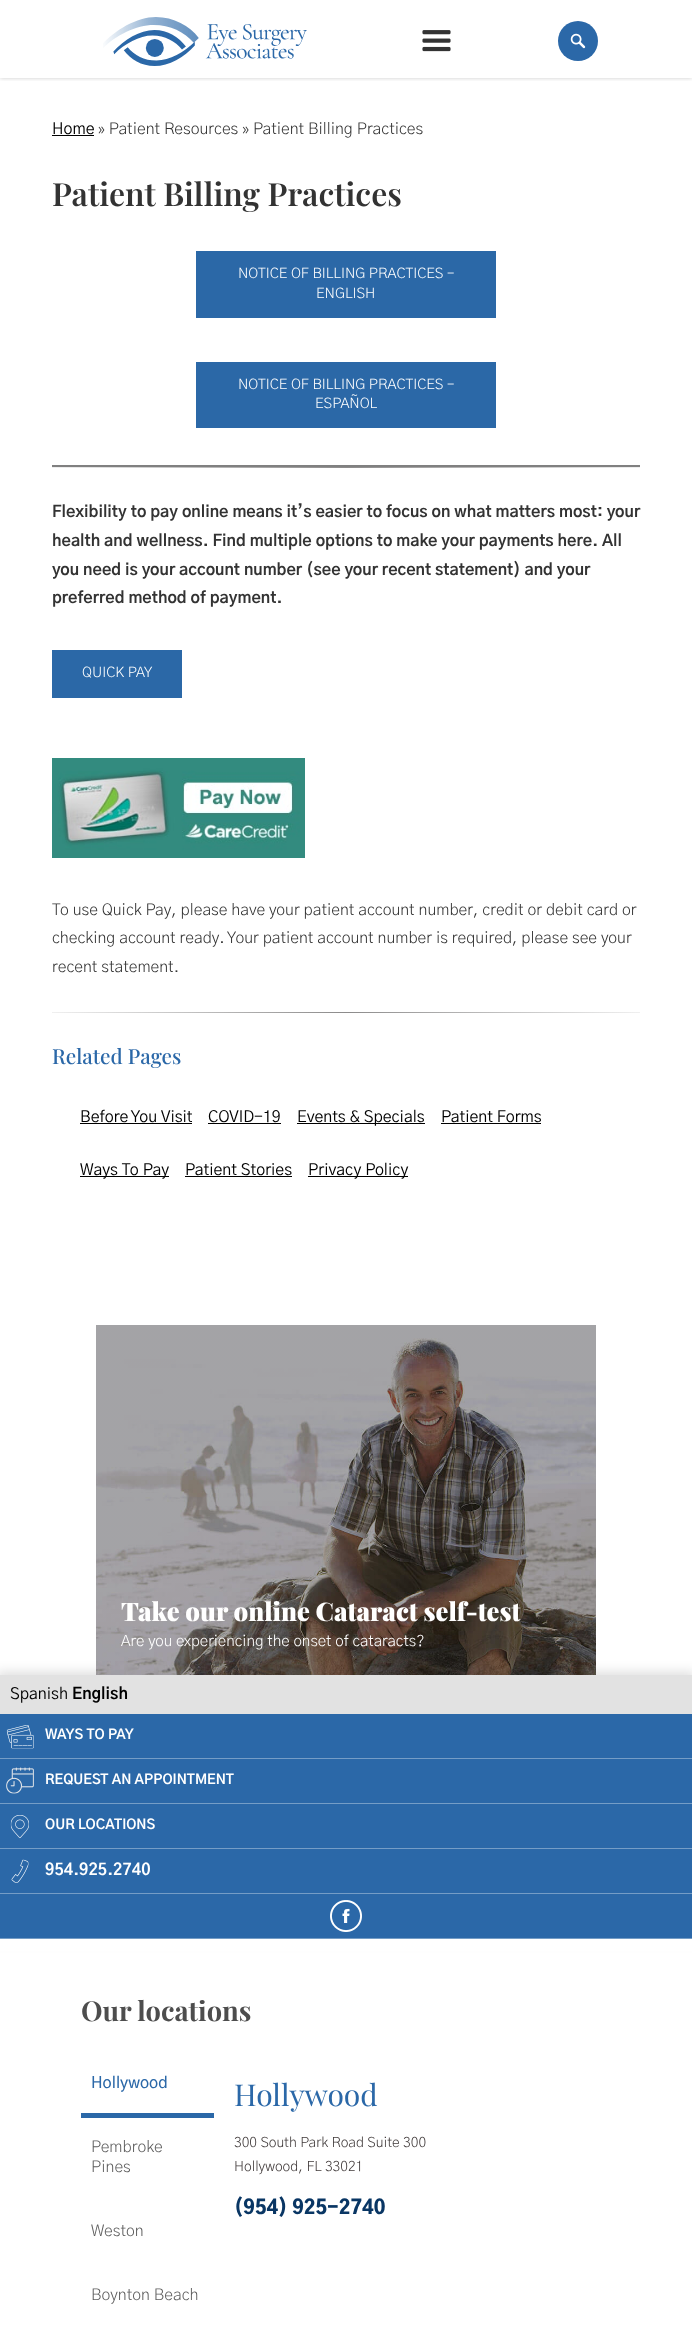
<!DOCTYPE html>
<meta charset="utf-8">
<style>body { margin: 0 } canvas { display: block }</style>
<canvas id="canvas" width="692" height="2348"></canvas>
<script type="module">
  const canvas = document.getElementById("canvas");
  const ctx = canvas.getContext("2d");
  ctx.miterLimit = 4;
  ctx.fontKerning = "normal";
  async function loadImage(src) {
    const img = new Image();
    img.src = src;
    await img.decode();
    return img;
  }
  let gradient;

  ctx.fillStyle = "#ffffff";
  ctx.fillRect(0, 0, 692, 2348);
  ctx.save();
  ctx.beginPath();
  ctx.rect(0, 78, 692, 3);
  ctx.clip();
  ctx.fillStyle = "rgba(0, 0, 0, 0.21)";
  ctx.filter = "blur(2px)";
  ctx.beginPath();
  ctx.rect(0, 0, 692, 78);
  ctx.fill();
  ctx.filter = "none";
  ctx.restore();
  ctx.drawImage(await loadImage("img1.png"), 103, 17, 204, 49);
  ctx.drawImage(await loadImage("img2.png"), 422, 30, 29, 22);
  ctx.fillStyle = "#2b68a8";
  ctx.beginPath();
  ctx.arc(578, 41, 20, 0, Math.PI * 2);
  ctx.fill();
  ctx.drawImage(await loadImage("img3.png"), 570, 33, 16, 16);
  ctx.font = "16px 'Gothic A1'";
  ctx.fillStyle = "#000000";
  ctx.fillText("Home", 52, 134);
  ctx.fillRect(52, 135, 42, 1);
  ctx.font = "300 16px 'Gothic A1'";
  ctx.fillStyle = "#333333";
  ctx.fillText("» Patient Resources » Patient Billing Practices", 98, 134);
  ctx.font = "600 32px Playfair Display";
  ctx.fillText("Patient Billing Practices", 52, 206);
  ctx.fillStyle = "#2b68a7";
  ctx.fillRect(196, 251, 300, 67);
  ctx.font = "300 14.4px 'Gothic A1'";
  ctx.fillStyle = "#ffffff";
  ctx.fillText("NOTICE OF BILLING PRACTICES –", 238, 278);
  ctx.fillText("ENGLISH", 316, 298);
  ctx.fillStyle = "#2b68a7";
  ctx.fillRect(196, 362, 300, 66);
  ctx.fillStyle = "#ffffff";
  ctx.fillText("NOTICE OF BILLING PRACTICES –", 238, 389);
  ctx.fillText("ESPAÑOL", 315, 408);
  gradient = ctx.createLinearGradient(52, 468, 640, 468);
  gradient.addColorStop(0, "#f0f0f0");
  gradient.addColorStop(0.5, "#8c8b8b");
  gradient.addColorStop(1, "#f0f0f0");
  ctx.fillStyle = gradient;
  ctx.fillRect(52, 467, 588, 1);
  ctx.fillStyle = "#808080";
  ctx.fillRect(52, 465, 588, 2);
  ctx.font = "bold 16px 'Gothic A1'";
  ctx.fillStyle = "#333333";
  ctx.fillText("Flexibility to pay online means it’s easier to focus on what matters most: your", 52, 517);
  ctx.fillText("health and wellness. Find multiple options to make your payments here. All", 52, 546);
  ctx.fillText("you need is your account number (see your recent statement) and your", 52, 575);
  ctx.fillText("preferred method of payment.", 52, 603);
  ctx.fillStyle = "#2b68a7";
  ctx.fillRect(52, 650, 130, 48);
  ctx.font = "300 14.4px 'Gothic A1'";
  ctx.fillStyle = "#ffffff";
  ctx.fillText("QUICK PAY", 82, 677);
  ctx.drawImage(await loadImage("img4.png"), 52, 758, 253, 100);
  ctx.font = "300 16px 'Gothic A1'";
  ctx.fillStyle = "#333333";
  ctx.fillText("To use Quick Pay, please have your patient account number, credit or debit card or", 52, 915);
  ctx.fillText("checking account ready. Your patient account number is required, please see your", 52, 943);
  ctx.fillText("recent statement.", 52, 972);
  gradient = ctx.createLinearGradient(52, 1013, 640, 1013);
  gradient.addColorStop(0, "#f0f0f0");
  gradient.addColorStop(0.5, "#8c8b8b");
  gradient.addColorStop(1, "#f0f0f0");
  ctx.fillStyle = gradient;
  ctx.fillRect(52, 1012, 588, 1);
  ctx.font = "500 20.75px Playfair Display";
  ctx.fillStyle = "#2b68a8";
  ctx.fillText("Related Pages", 52, 1064);
  ctx.font = "16px 'Gothic A1'";
  ctx.fillStyle = "#000000";
  ctx.fillText("Before You Visit", 80, 1122);
  ctx.fillRect(80, 1123, 112, 1);
  ctx.fillText("COVID-19", 208, 1122);
  ctx.fillRect(208, 1123, 73, 1);
  ctx.fillRect(297, 1123, 128, 1);
  ctx.fillText("Events & Specials", 297, 1122);
  ctx.fillText("Patient Forms", 441, 1122);
  ctx.fillRect(441, 1123, 100, 1);
  ctx.fillRect(80, 1176, 89, 1);
  ctx.fillText("Ways To Pay", 80, 1175);
  ctx.fillText("Patient Stories", 185, 1175);
  ctx.fillRect(185, 1176, 107, 1);
  ctx.fillRect(308, 1176, 100, 1);
  ctx.fillText("Privacy Policy", 308, 1175);
  ctx.fillStyle = "rgba(0, 0, 0, 0.13)";
  ctx.filter = "blur(6px)";
  ctx.beginPath();
  ctx.rect(-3, 1672, 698, 270);
  ctx.fill();
  ctx.filter = "none";
  ctx.drawImage(await loadImage("img5.png"), 96, 1325, 500, 350);
  ctx.font = "900 25.6px Playfair Display";
  ctx.fillStyle = "#ffffff";
  ctx.fillText("Take our online Cataract self-test", 121, 1621);
  ctx.font = "300 15.4px 'Gothic A1'";
  ctx.fillText("Are you experiencing the onset of cataracts?", 121, 1646);
  ctx.fillStyle = "#e2e2e2";
  ctx.fillRect(0, 1675, 692, 39);
  ctx.font = "16px 'Gothic A1'";
  ctx.fillStyle = "#000000";
  ctx.fillText("Spanish", 10, 1699);
  ctx.font = "bold 16px 'Gothic A1'";
  ctx.fillText("English", 72, 1699);
  ctx.fillStyle = "#2b68a8";
  ctx.fillRect(0, 1714, 692, 44);
  ctx.drawImage(await loadImage("img6.png"), 6, 1725, 28, 24);
  ctx.fillStyle = "#759dc6";
  ctx.fillRect(0, 1758, 692, 1);
  ctx.font = "bold 13.6px 'Gothic A1'";
  ctx.fillStyle = "#ffffff";
  ctx.fillText("WAYS TO PAY", 45, 1739);
  ctx.fillStyle = "#2b68a8";
  ctx.fillRect(0, 1759, 692, 44);
  ctx.drawImage(await loadImage("img7.png"), 6, 1767, 28, 27);
  ctx.fillStyle = "#759dc6";
  ctx.fillRect(0, 1803, 692, 1);
  ctx.fillStyle = "#ffffff";
  ctx.fillText("REQUEST AN APPOINTMENT", 45, 1784);
  ctx.fillStyle = "#2b68a8";
  ctx.fillRect(0, 1804, 692, 44);
  ctx.drawImage(await loadImage("img8.png"), 10, 1815, 19, 24);
  ctx.fillStyle = "#759dc6";
  ctx.fillRect(0, 1848, 692, 1);
  ctx.fillStyle = "#ffffff";
  ctx.fillText("OUR LOCATIONS", 45, 1829);
  ctx.fillStyle = "#2b68a8";
  ctx.fillRect(0, 1849, 692, 44);
  ctx.drawImage(await loadImage("img9.png"), 11, 1859, 18, 24);
  ctx.fillStyle = "#759dc6";
  ctx.fillRect(0, 1893, 692, 1);
  ctx.font = "bold 16px 'Gothic A1'";
  ctx.fillStyle = "#ffffff";
  ctx.fillText("954.925.2740", 45, 1875);
  ctx.fillStyle = "#2b68a8";
  ctx.fillRect(0, 1894, 692, 44);
  ctx.fillStyle = "#759dc6";
  ctx.fillRect(0, 1938, 692, 1);
  ctx.drawImage(await loadImage("img10.png"), 330, 1900, 32, 32);
  ctx.fillStyle = "#ffffff";
  ctx.fillRect(0, 1939, 692, 12);
  ctx.font = "bold 27.25px Playfair Display";
  ctx.fillStyle = "#4d4d4d";
  ctx.fillText("Our locations", 81, 2021);
  ctx.fillStyle = "#2b68a8";
  ctx.fillRect(81, 2113, 133, 5);
  ctx.font = "500 16px 'Gothic A1'";
  ctx.fillText("Hollywood", 91, 2088);
  ctx.font = "300 16px 'Gothic A1'";
  ctx.fillStyle = "#5e5e5e";
  ctx.fillText("Pembroke", 91, 2152);
  ctx.fillText("Pines", 91, 2172);
  ctx.fillText("Weston", 91, 2236);
  ctx.fillText("Boynton Beach", 91, 2300);
  ctx.font = "30px Playfair Display";
  ctx.fillStyle = "#2b68a8";
  ctx.fillText("Hollywood", 234, 2106);
  ctx.font = "300 14px 'Gothic A1'";
  ctx.fillStyle = "#403a3a";
  ctx.fillText("300 South Park Road Suite 300", 234, 2147);
  ctx.fillText("Hollywood, FL 33021", 234, 2171);
  ctx.font = "900 19.25px 'Gothic A1'";
  ctx.fillStyle = "#093664";
  ctx.fillText("(954) 925-2740", 234, 2214);
</script>
